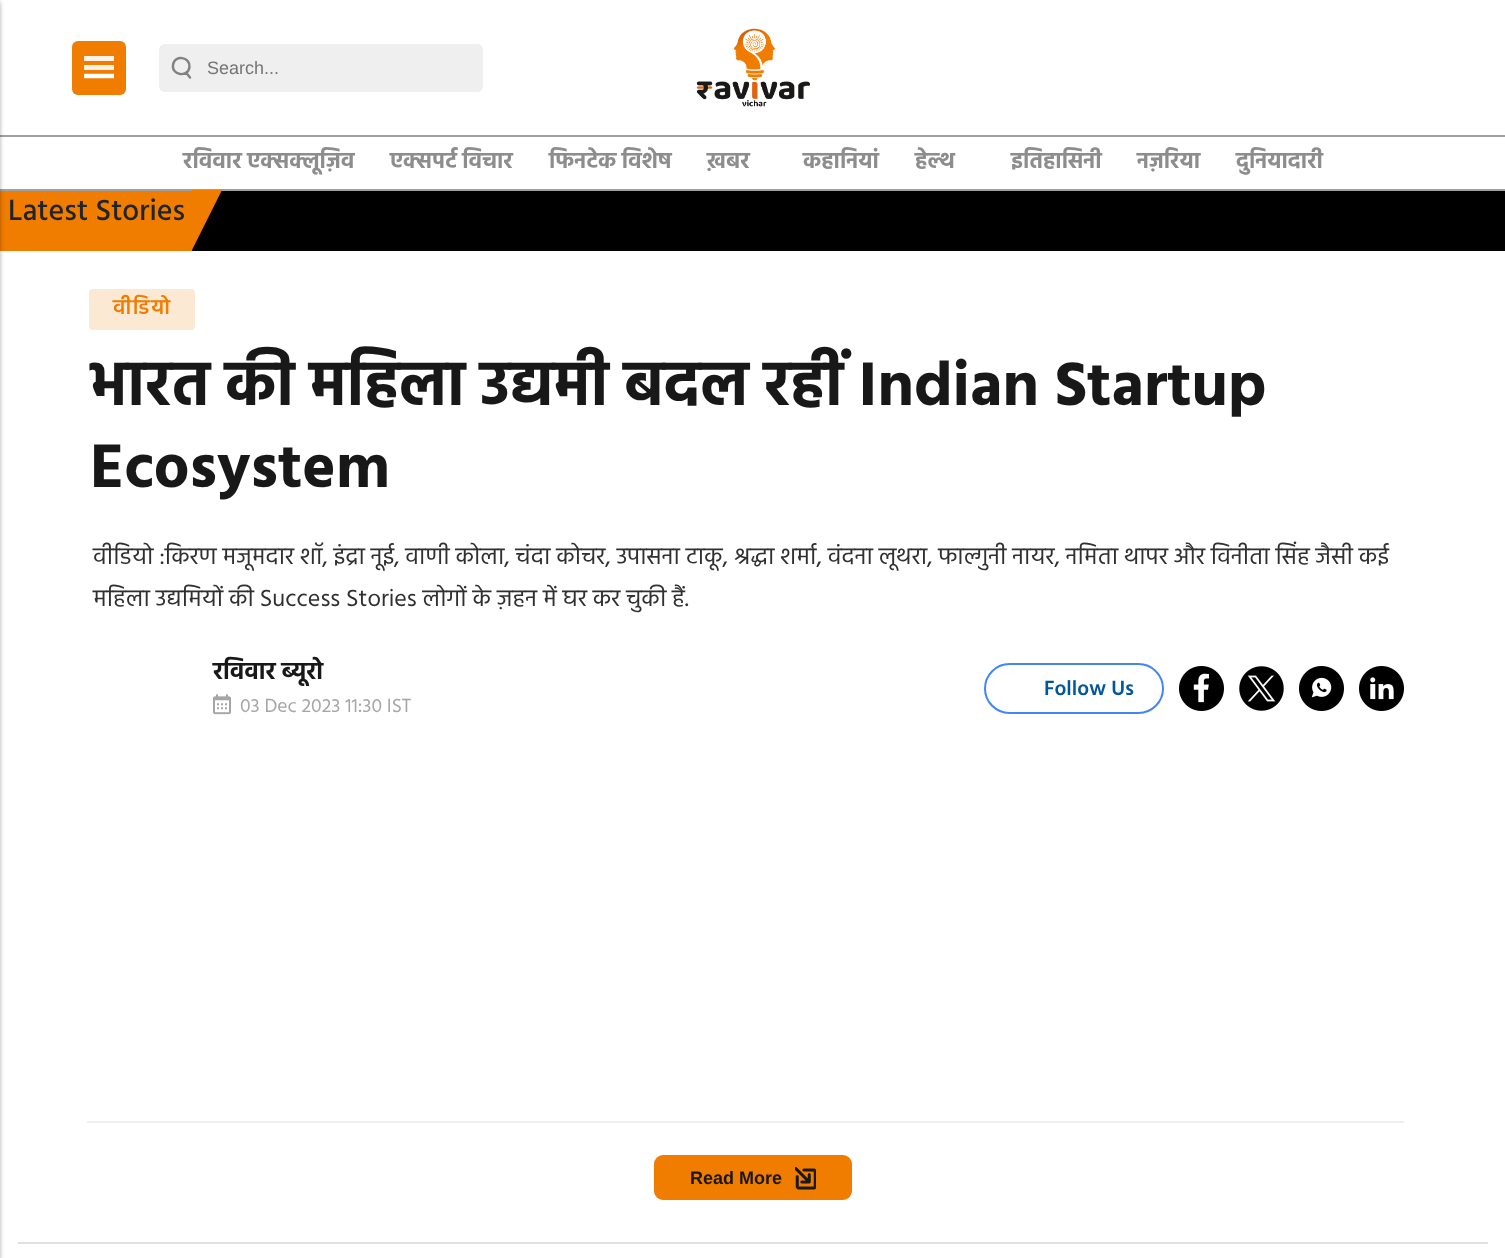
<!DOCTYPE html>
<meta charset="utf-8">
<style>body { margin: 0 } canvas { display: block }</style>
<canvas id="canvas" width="1505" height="1258"></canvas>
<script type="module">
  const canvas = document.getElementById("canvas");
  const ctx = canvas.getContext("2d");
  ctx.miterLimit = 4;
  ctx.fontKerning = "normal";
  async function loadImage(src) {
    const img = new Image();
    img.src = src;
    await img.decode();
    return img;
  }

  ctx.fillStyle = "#ffffff";
  ctx.fillRect(0, 0, 1505, 1258);
  ctx.fillStyle = "#a0a0a0";
  ctx.fillRect(0, 135, 1505, 2);
  ctx.fillRect(0, 189, 1505, 2);
  ctx.fillStyle = "#f07c00";
  ctx.fillRect(0, 191, 192, 60);
  ctx.fillStyle = "rgba(0, 0, 0, 0.22)";
  ctx.filter = "blur(2px)";
  ctx.beginPath();
  ctx.rect(-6, 3, 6, 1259);
  ctx.fill();
  ctx.filter = "none";
  ctx.fillStyle = "rgba(0, 0, 0, 0.12)";
  ctx.filter = "blur(2px)";
  ctx.beginPath();
  ctx.rect(-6, 0, 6, 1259);
  ctx.fill();
  ctx.filter = "none";
  ctx.fillStyle = "#f07c00";
  ctx.beginPath();
  ctx.roundRect(72, 41, 54, 54, 6);
  ctx.fill();
  ctx.fillStyle = "#fef2e6";
  ctx.fillRect(84, 56, 30, 5);
  ctx.fillRect(84, 65, 30, 5);
  ctx.beginPath();
  ctx.moveTo(84, 76);
  ctx.lineTo(114, 76);
  ctx.strokeStyle = "#ffffff";
  ctx.lineWidth = 4.5;
  ctx.stroke();
  ctx.fillStyle = "#efefef";
  ctx.beginPath();
  ctx.roundRect(159, 44, 324, 48, 6);
  ctx.fill();
  ctx.beginPath();
  ctx.moveTo(189.5, 67);
  ctx.bezierCurveTo(188, 78, 171.5, 75.5, 173, 65);
  ctx.bezierCurveTo(174.5, 54, 190.5, 57, 189.5, 67);
  ctx.closePath();
  ctx.moveTo(190, 77.5);
  ctx.lineTo(186, 72.5);
  ctx.strokeStyle = "#828282";
  ctx.lineWidth = 2.4;
  ctx.lineCap = "round";
  ctx.lineJoin = "round";
  ctx.stroke();
  ctx.beginPath();
  ctx.roundRect(204, 44, 279, 48, 6);
  ctx.fill();
  ctx.font = "18px Liberation Sans";
  ctx.fillStyle = "#757575";
  ctx.fillText("Search...", 207, 74);
  ctx.drawImage(await loadImage("img1.png"), 696, 28, 114, 79);
  ctx.font = "bold 22.5px Hind";
  ctx.fillStyle = "#8d8d8d";
  ctx.fillText("रविवार एक्सक्लूज़िव", 183, 168);
  ctx.fillText("एक्सपर्ट विचार", 390, 168);
  ctx.fillText("फिनटेक विशेष", 549, 168);
  ctx.fillText("ख़बर", 707, 168);
  ctx.fillText("कहानियां", 803, 168);
  ctx.save();
  ctx.beginPath();
  ctx.rect(908, 137, 75, 52);
  ctx.clip();
  ctx.fillText("हेल्थ", 915, 168);
  ctx.restore();
  ctx.fillText("इतिहासिनी", 1011, 168);
  ctx.fillText("नज़रिया", 1137, 168);
  ctx.save();
  ctx.beginPath();
  ctx.rect(1229, 137, 102, 52);
  ctx.clip();
  ctx.fillText("दुनियादारी", 1236, 168);
  ctx.restore();
  ctx.font = "500 30px Hind";
  ctx.fillStyle = "#212529";
  ctx.fillText("Latest Stories", 8, 220);
  ctx.fillStyle = "#000000";
  ctx.fillRect(192, 191, 1313, 60);
  ctx.fillStyle = "#f07c00";
  ctx.beginPath();
  ctx.moveTo(192, 250);
  ctx.lineTo(192, 190);
  ctx.lineTo(222, 190);
  ctx.closePath();
  ctx.fill();
  ctx.fillStyle = "#fce9d4";
  ctx.beginPath();
  ctx.roundRect(88, 288, 108, 43, 5);
  ctx.fill();
  ctx.strokeStyle = "#ffffff";
  ctx.lineWidth = 2;
  ctx.lineJoin = "miter";
  ctx.stroke();
  ctx.letterSpacing = "1.5px";
  ctx.font = "600 21px Hind";
  ctx.fillStyle = "#f07c00";
  ctx.fillText("वीडियो", 113, 314);
  ctx.letterSpacing = "0px";
  ctx.font = "bold 63px Hind";
  ctx.fillStyle = "#181818";
  ctx.fillText("भारत की महिला उद्यमी बदल रहीं Indian Startup", 90, 405);
  ctx.fillText("Ecosystem", 90, 487);
  ctx.font = "24px Hind";
  ctx.fillStyle = "#303030";
  ctx.fillText("वीडियो :किरण मजूमदार शॉ, इंद्रा नूई, वाणी कोला, चंदा कोचर, उपासना टाकू, श्रद्धा शर्मा, वंदना लूथरा, फाल्गुनी नायर, नमिता थापर और विनीता सिंह जैसी कई", 93, 564);
  ctx.fillText("महिला उद्यमियों की Success Stories लोगों के ज़हन में घर कर चुकी हैं.", 93, 606);
  ctx.font = "bold 24px Hind";
  ctx.fillStyle = "#181818";
  ctx.fillText("रविवार ब्यूरो", 213, 679);
  ctx.drawImage(await loadImage("img2.png"), 213, 694, 18, 21);
  ctx.font = "19.5px Hind";
  ctx.fillStyle = "#a9a5a5";
  ctx.fillText("03 Dec 2023 11:30 IST", 240, 712);
  ctx.beginPath();
  ctx.roundRect(985, 664, 178, 49, 24.5);
  ctx.strokeStyle = "#4086f4";
  ctx.stroke();
  ctx.font = "600 21px Hind";
  ctx.fillStyle = "#01579b";
  ctx.fillText("Follow Us", 1044, 695);
  ctx.drawImage(await loadImage("img3.png"), 1179, 666, 45, 45);
  ctx.drawImage(await loadImage("img4.png"), 1239, 666, 45, 45);
  ctx.drawImage(await loadImage("img5.png"), 1299, 666, 45, 45);
  ctx.drawImage(await loadImage("img6.png"), 1359, 666, 45, 45);
  ctx.fillStyle = "#efefef";
  ctx.fillRect(87, 1121, 1317, 2);
  ctx.fillStyle = "#f07c00";
  ctx.beginPath();
  ctx.roundRect(654, 1155, 198, 45, 9);
  ctx.fill();
  ctx.font = "bold 18px Liberation Sans";
  ctx.fillStyle = "#181818";
  ctx.fillText("Read More", 690, 1184);
  ctx.drawImage(await loadImage("img7.png"), 795, 1167, 21, 23);
  ctx.fillStyle = "#dee2e6";
  ctx.fillRect(18, 1242, 1470, 2);
</script>
